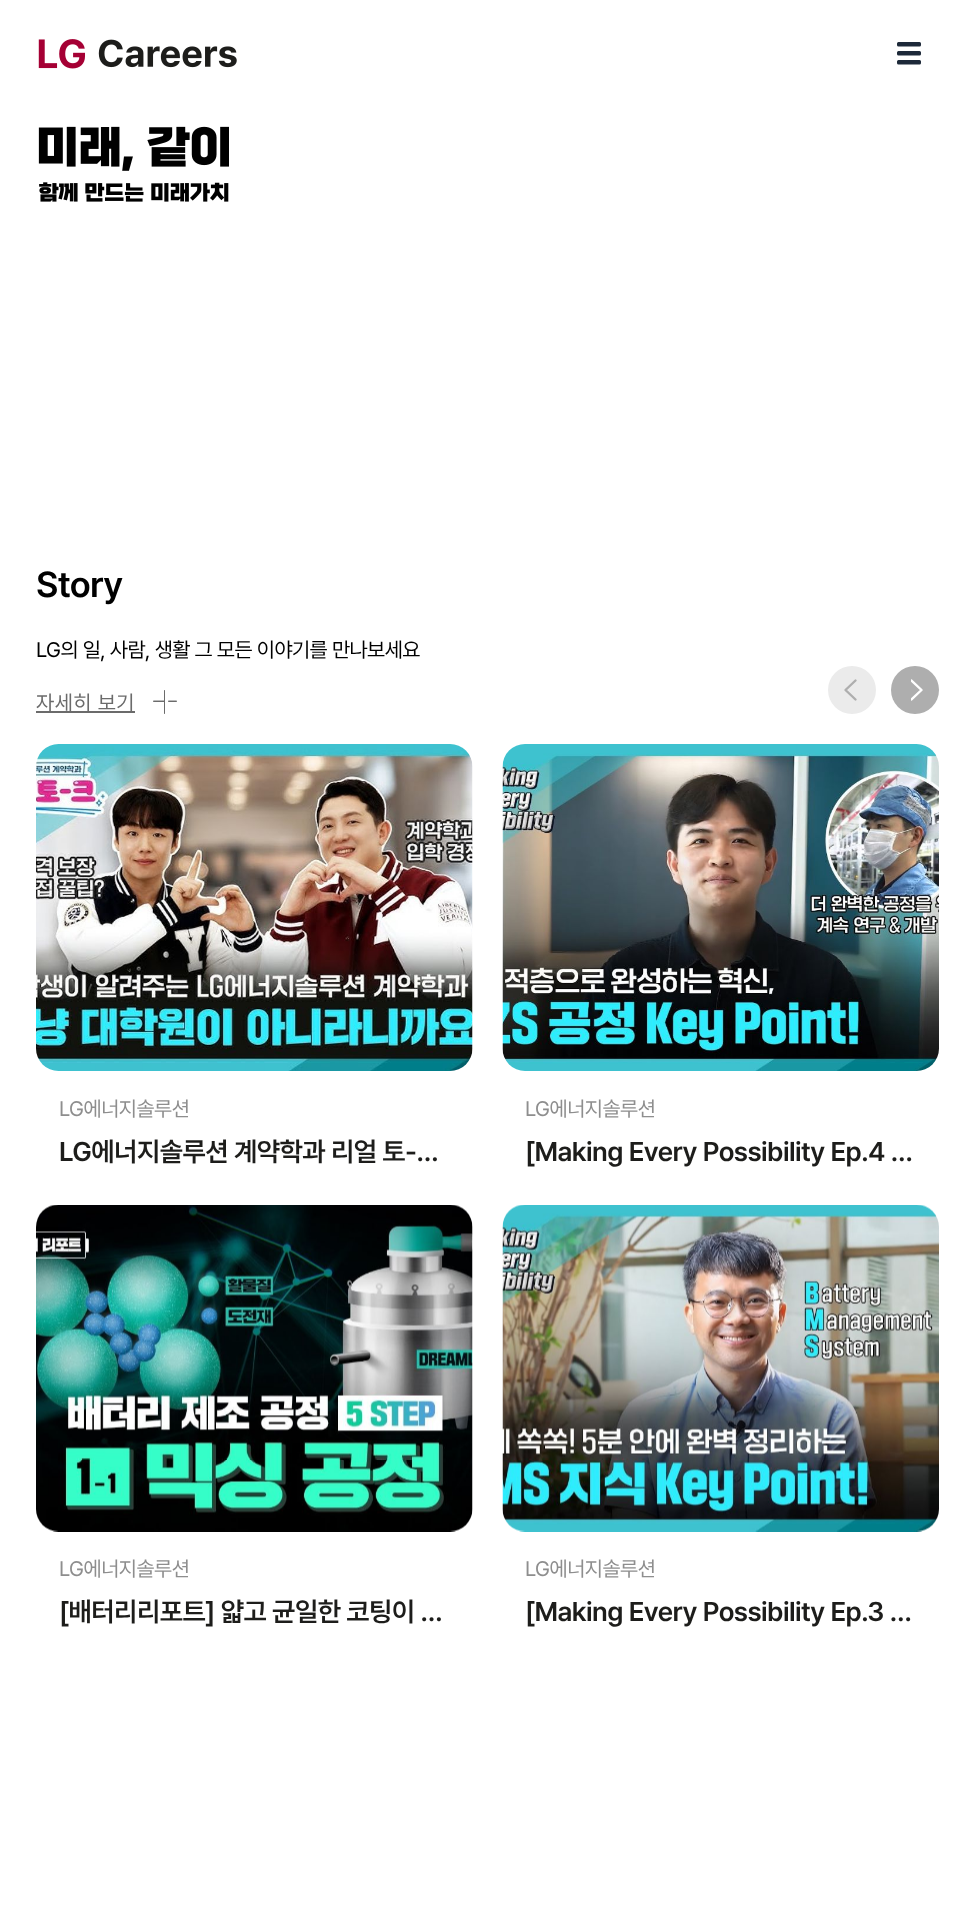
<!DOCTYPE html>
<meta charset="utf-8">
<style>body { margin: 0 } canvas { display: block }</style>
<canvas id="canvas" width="974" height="1919"></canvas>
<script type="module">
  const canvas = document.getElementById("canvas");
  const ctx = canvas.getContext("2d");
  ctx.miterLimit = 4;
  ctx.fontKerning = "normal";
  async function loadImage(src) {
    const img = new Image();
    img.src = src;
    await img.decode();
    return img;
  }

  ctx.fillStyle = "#ffffff";
  ctx.fillRect(0, 0, 974, 1919);
  ctx.drawImage(await loadImage("img1.png"), 38, 39, 199, 30);
  ctx.drawImage(await loadImage("img2.png"), 897, 42, 24, 23);
  ctx.drawImage(await loadImage("img3.png"), 38, 126, 191, 76);
  ctx.letterSpacing = "-0.75px";
  ctx.font = "600 36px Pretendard";
  ctx.fillStyle = "#000000";
  ctx.fillText("Story", 36, 597);
  ctx.letterSpacing = "-0.55px";
  ctx.font = "21px Pretendard";
  ctx.fillText("LG의 일, 사람, 생활 그 모든 이야기를 만나보세요", 36, 657);
  ctx.fillStyle = "#6b6b6b";
  ctx.fillRect(36, 711, 99, 2);
  ctx.letterSpacing = "0.5px";
  ctx.fillText("자세히 보기", 36, 710);
  ctx.drawImage(await loadImage("img4.png"), 153, 690, 24, 24);
  ctx.fillStyle = "#ebebeb";
  ctx.beginPath();
  ctx.arc(852, 690, 24, 0, Math.PI * 2);
  ctx.fill();
  ctx.beginPath();
  ctx.moveTo(855.5, 680.5);
  ctx.lineTo(845.5, 690);
  ctx.lineTo(855.5, 699.5);
  ctx.strokeStyle = "#aeaeae";
  ctx.lineWidth = 2.4;
  ctx.lineCap = "round";
  ctx.lineJoin = "round";
  ctx.stroke();
  ctx.fillStyle = "#aeaeae";
  ctx.beginPath();
  ctx.arc(915, 690, 24, 0, Math.PI * 2);
  ctx.fill();
  ctx.save();
  ctx.beginPath();
  ctx.rect(911, 677, 12, 27);
  ctx.clip();
  ctx.beginPath();
  ctx.moveTo(911.5, 699.5);
  ctx.lineTo(921.5, 690);
  ctx.lineTo(911.5, 680.5);
  ctx.strokeStyle = "#ffffff";
  ctx.stroke();
  ctx.restore();
  ctx.drawImage(await loadImage("img5.png"), 36, 744, 437, 327);
  ctx.letterSpacing = "-0.5px";
  ctx.fillStyle = "#8e8e8e";
  ctx.fillText("LG에너지솔루션", 59, 1116);
  ctx.letterSpacing = "-0.55px";
  ctx.font = "600 27px Pretendard";
  ctx.fillStyle = "#1d1d1b";
  ctx.fillText("LG에너지솔루션 계약학과 리얼 토-…", 59, 1161);
  ctx.drawImage(await loadImage("img6.png"), 36, 1205, 437, 327);
  ctx.letterSpacing = "-0.5px";
  ctx.font = "21px Pretendard";
  ctx.fillStyle = "#8e8e8e";
  ctx.fillText("LG에너지솔루션", 59, 1576);
  ctx.letterSpacing = "-0.55px";
  ctx.font = "600 27px Pretendard";
  ctx.fillStyle = "#1d1d1b";
  ctx.fillText("[배터리리포트] 얇고 균일한 코팅이 …", 59, 1621);
  ctx.drawImage(await loadImage("img7.png"), 502, 744, 437, 327);
  ctx.letterSpacing = "-0.5px";
  ctx.font = "21px Pretendard";
  ctx.fillStyle = "#8e8e8e";
  ctx.fillText("LG에너지솔루션", 525, 1116);
  ctx.letterSpacing = "-0.55px";
  ctx.font = "600 27px Pretendard";
  ctx.fillStyle = "#1d1d1b";
  ctx.fillText("[Making Every Possibility Ep.4 …", 525, 1161);
  ctx.drawImage(await loadImage("img8.png"), 502, 1205, 437, 327);
  ctx.letterSpacing = "-0.5px";
  ctx.font = "21px Pretendard";
  ctx.fillStyle = "#8e8e8e";
  ctx.fillText("LG에너지솔루션", 525, 1576);
  ctx.letterSpacing = "-0.55px";
  ctx.font = "600 27px Pretendard";
  ctx.fillStyle = "#1d1d1b";
  ctx.fillText("[Making Every Possibility Ep.3 …", 525, 1621);
</script>
